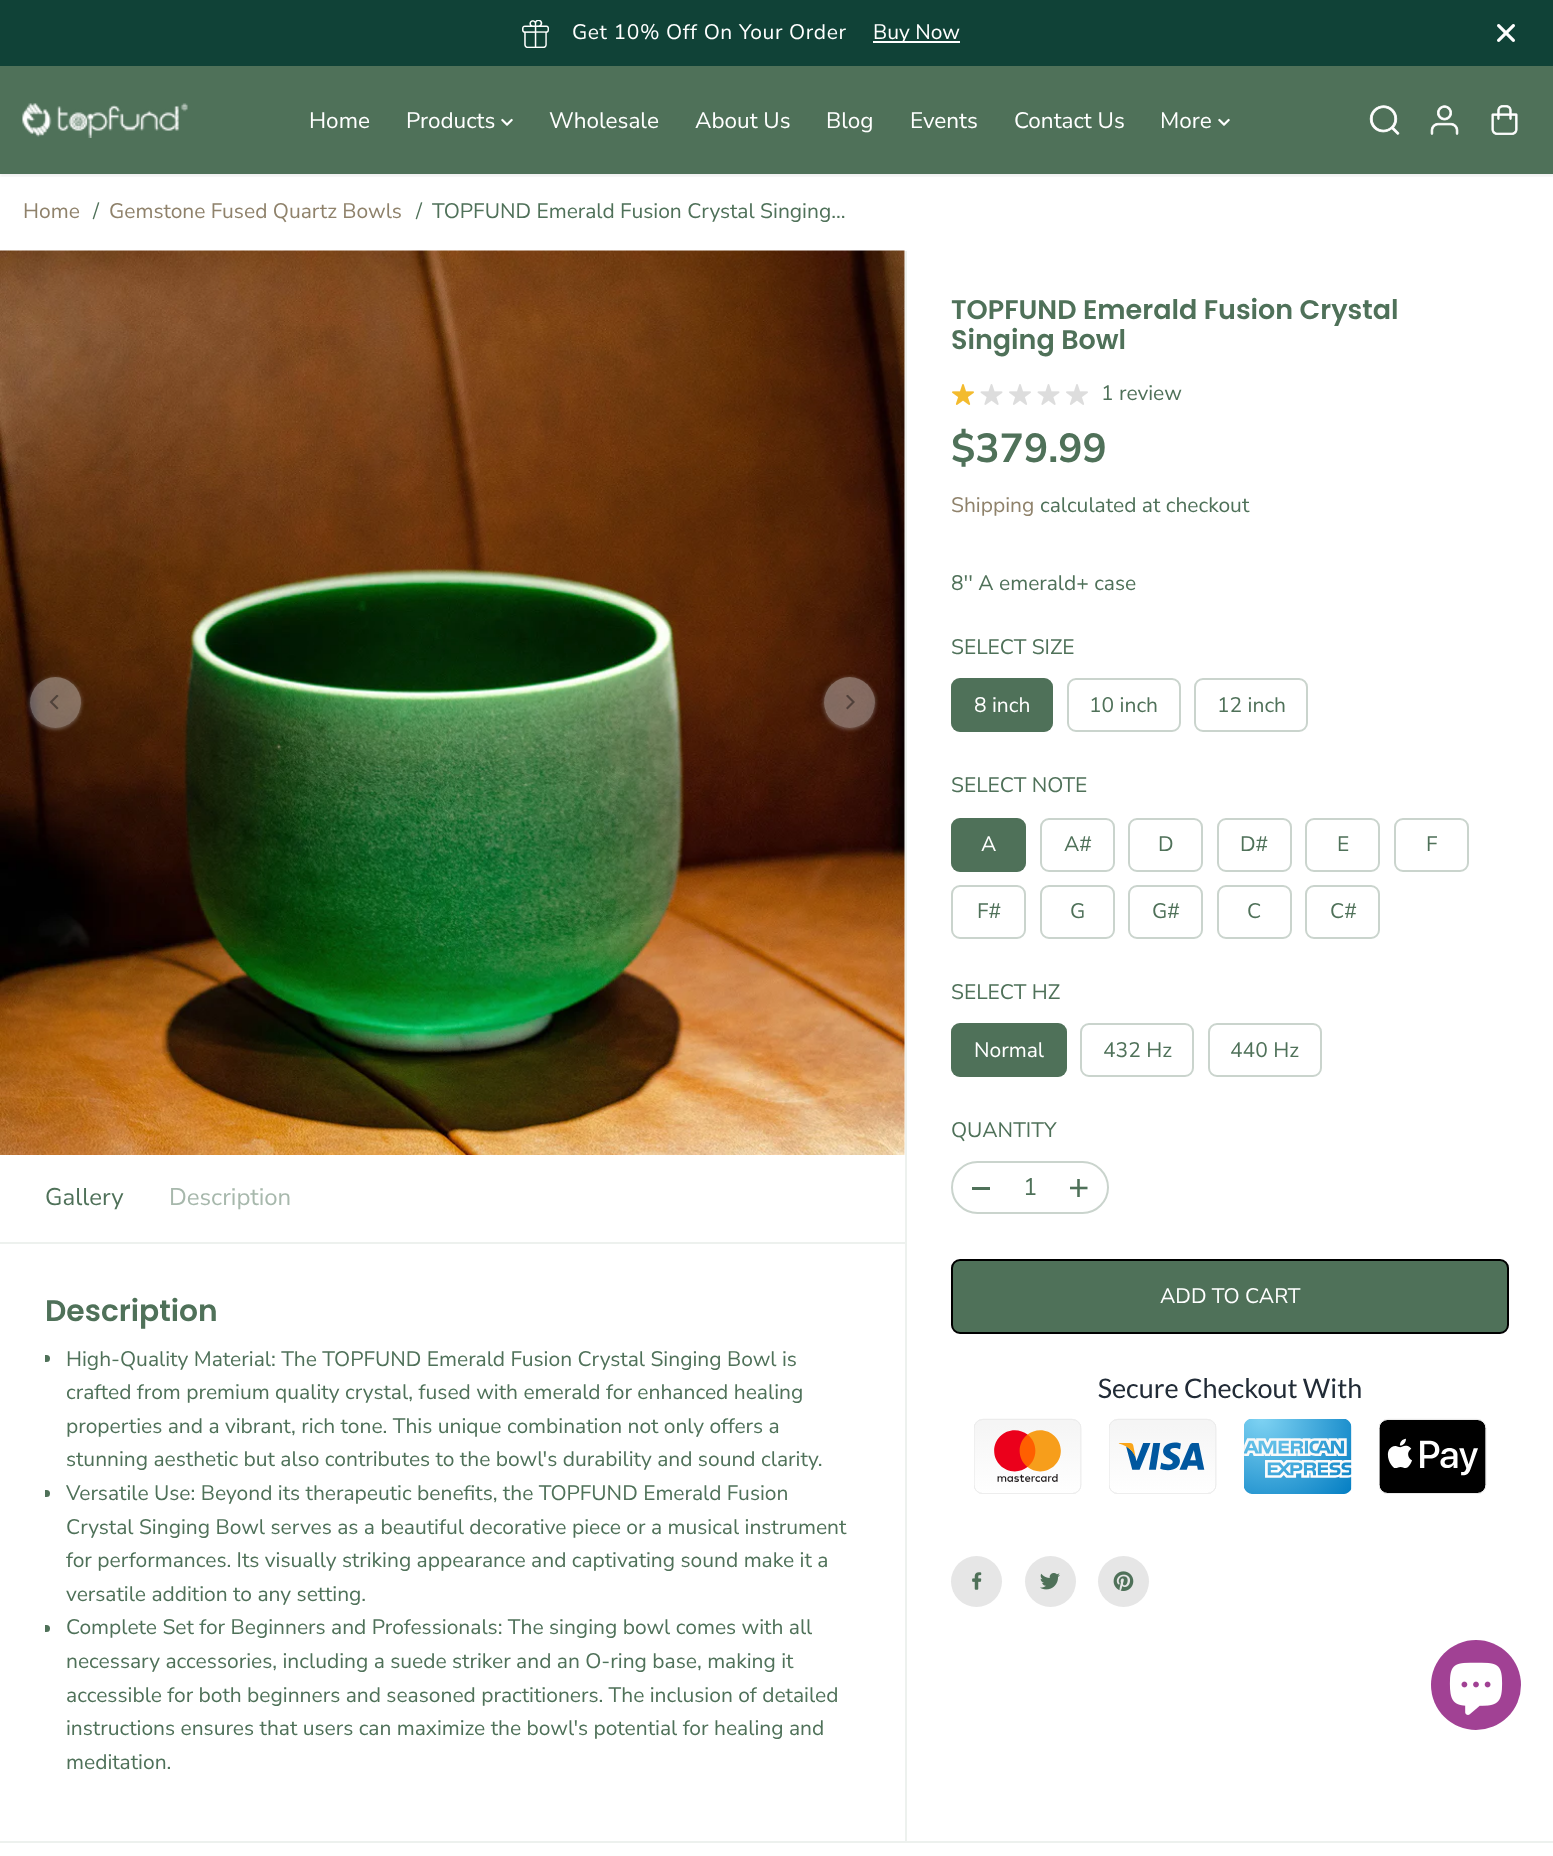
<!DOCTYPE html>
<meta charset="utf-8">
<style>body { margin: 0 } canvas { display: block }</style>
<canvas id="canvas" width="1553" height="1856"></canvas>
<script type="module">
  const canvas = document.getElementById("canvas");
  const ctx = canvas.getContext("2d");
  ctx.miterLimit = 4;
  ctx.fontKerning = "normal";
  async function loadImage(src) {
    const img = new Image();
    img.src = src;
    await img.decode();
    return img;
  }

  ctx.fillStyle = "#ffffff";
  ctx.fillRect(0, 0, 1553, 1856);
  ctx.fillStyle = "#4f7159";
  ctx.fillRect(0, 66, 1553, 108);
  ctx.save();
  ctx.beginPath();
  ctx.rect(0, 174, 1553, 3);
  ctx.clip();
  ctx.fillStyle = "rgba(0, 0, 0, 0.05)";
  ctx.filter = "blur(1.5px)";
  ctx.beginPath();
  ctx.rect(0, 69, 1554, 108);
  ctx.fill();
  ctx.filter = "none";
  ctx.restore();
  ctx.fillStyle = "#104237";
  ctx.fillRect(0, 0, 1553, 66);
  ctx.drawImage(await loadImage("img1.png"), 522, 20, 27, 28);
  ctx.letterSpacing = "0.6px";
  ctx.font = "21px Nunito Sans";
  ctx.fillStyle = "#ffffff";
  ctx.fillText("Get 10% Off On Your Order", 572, 39);
  ctx.fillRect(873, 41, 87, 2);
  ctx.letterSpacing = "0px";
  ctx.fillText("Buy Now", 873, 39);
  ctx.drawImage(await loadImage("img2.png"), 1497, 24, 18, 18);
  ctx.drawImage(await loadImage("img3.png"), 22, 103, 166, 35);
  ctx.font = "22.5px Nunito Sans";
  ctx.fillText("Home", 309, 128);
  ctx.fillText("Products", 406, 128);
  ctx.drawImage(await loadImage("img4.png"), 501, 118, 12, 8);
  ctx.fillText("Wholesale", 549, 128);
  ctx.fillText("About Us", 695, 128);
  ctx.fillText("Blog", 826, 128);
  ctx.fillText("Events", 910, 128);
  ctx.fillText("Contact Us", 1014, 128);
  ctx.fillText("More", 1160, 128);
  ctx.drawImage(await loadImage("img4.png"), 1218, 118, 12, 8);
  ctx.drawImage(await loadImage("img5.png"), 1369, 105, 31, 30);
  ctx.drawImage(await loadImage("img6.png"), 1430, 105, 29, 30);
  ctx.drawImage(await loadImage("img7.png"), 1491, 105, 27, 30);
  ctx.font = "21px Nunito Sans";
  ctx.fillStyle = "#8f826b";
  ctx.fillText("Home", 23, 218);
  ctx.fillStyle = "#4f7159";
  ctx.fillText("/", 93, 218);
  ctx.fillStyle = "#8f826b";
  ctx.fillText("Gemstone Fused Quartz Bowls", 109, 218);
  ctx.fillStyle = "#4f7159";
  ctx.fillText("/", 416, 218);
  ctx.fillText("TOPFUND Emerald Fusion Crystal Singing...", 432, 218);
  ctx.fillStyle = "#edf1ee";
  ctx.fillRect(0, 1841, 1553, 2);
  ctx.font = "600 27px Poppins";
  ctx.fillStyle = "#4f7159";
  ctx.fillText("TOPFUND Emerald Fusion Crystal", 951, 319);
  ctx.fillText("Singing Bowl", 951, 349);
  ctx.drawImage(await loadImage("img8.png"), 952, 384, 22, 21);
  ctx.drawImage(await loadImage("img9.png"), 980, 384, 23, 21);
  ctx.drawImage(await loadImage("img10.png"), 1009, 384, 22, 21);
  ctx.drawImage(await loadImage("img9.png"), 1037, 384, 23, 21);
  ctx.drawImage(await loadImage("img10.png"), 1066, 384, 22, 21);
  ctx.font = "21px Nunito Sans";
  ctx.fillText("1 review", 1101, 400);
  ctx.font = "bold 40.5px Nunito Sans";
  ctx.fillText("$379.99", 951, 462);
  ctx.font = "21px Nunito Sans";
  ctx.fillStyle = "#8f826b";
  ctx.fillText("Shipping", 951, 512);
  ctx.fillStyle = "#4f7159";
  ctx.fillText("calculated at checkout", 1040, 512);
  ctx.fillText("8'' A emerald+ case", 951, 590);
  ctx.fillText("SELECT SIZE", 951, 654);
  ctx.beginPath();
  ctx.roundRect(951, 678, 102, 54, 9);
  ctx.fill();
  ctx.beginPath();
  ctx.roundRect(952, 679, 100, 52, 8);
  ctx.strokeStyle = "rgba(79, 113, 89, 0.3)";
  ctx.lineWidth = 2;
  ctx.stroke();
  ctx.fillStyle = "#ffffff";
  ctx.fillText("8 inch", 974, 712);
  ctx.beginPath();
  ctx.roundRect(1068, 679, 112, 52, 8);
  ctx.strokeStyle = "#cad4cd";
  ctx.stroke();
  ctx.fillStyle = "#4f7159";
  ctx.fillText("10 inch", 1089, 712);
  ctx.beginPath();
  ctx.roundRect(1195, 679, 112, 52, 8);
  ctx.stroke();
  ctx.fillText("12 inch", 1217, 712);
  ctx.fillText("SELECT NOTE", 951, 792);
  ctx.beginPath();
  ctx.roundRect(951, 818, 75, 54, 9);
  ctx.fill();
  ctx.beginPath();
  ctx.roundRect(952, 819, 73, 52, 8);
  ctx.strokeStyle = "rgba(79, 113, 89, 0.3)";
  ctx.stroke();
  ctx.fillStyle = "#ffffff";
  ctx.fillText("A", 981, 851);
  ctx.beginPath();
  ctx.roundRect(1041, 819, 73, 52, 8);
  ctx.strokeStyle = "#cad4cd";
  ctx.stroke();
  ctx.fillStyle = "#4f7159";
  ctx.fillText("A#", 1064, 851);
  ctx.beginPath();
  ctx.roundRect(1129, 819, 73, 52, 8);
  ctx.stroke();
  ctx.fillText("D", 1158, 851);
  ctx.beginPath();
  ctx.roundRect(1218, 819, 73, 52, 8);
  ctx.stroke();
  ctx.fillText("D#", 1240, 851);
  ctx.beginPath();
  ctx.roundRect(1306, 819, 73, 52, 8);
  ctx.stroke();
  ctx.fillText("E", 1337, 851);
  ctx.beginPath();
  ctx.roundRect(1395, 819, 73, 52, 8);
  ctx.stroke();
  ctx.fillText("F", 1426, 851);
  ctx.beginPath();
  ctx.roundRect(952, 886, 73, 52, 8);
  ctx.stroke();
  ctx.fillText("F#", 977, 918);
  ctx.beginPath();
  ctx.roundRect(1041, 886, 73, 52, 8);
  ctx.stroke();
  ctx.fillText("G", 1070, 918);
  ctx.beginPath();
  ctx.roundRect(1129, 886, 73, 52, 8);
  ctx.stroke();
  ctx.fillText("G#", 1152, 918);
  ctx.beginPath();
  ctx.roundRect(1218, 886, 73, 52, 8);
  ctx.stroke();
  ctx.fillText("C", 1247, 918);
  ctx.beginPath();
  ctx.roundRect(1306, 886, 73, 52, 8);
  ctx.stroke();
  ctx.fillText("C#", 1330, 918);
  ctx.fillText("SELECT HZ", 951, 999);
  ctx.beginPath();
  ctx.roundRect(951, 1023, 116, 54, 9);
  ctx.fill();
  ctx.beginPath();
  ctx.roundRect(952, 1024, 114, 52, 8);
  ctx.strokeStyle = "rgba(79, 113, 89, 0.3)";
  ctx.stroke();
  ctx.fillStyle = "#ffffff";
  ctx.fillText("Normal", 974, 1057);
  ctx.beginPath();
  ctx.roundRect(1081, 1024, 112, 52, 8);
  ctx.strokeStyle = "#cad4cd";
  ctx.stroke();
  ctx.fillStyle = "#4f7159";
  ctx.fillText("432 Hz", 1103, 1057);
  ctx.beginPath();
  ctx.roundRect(1209, 1024, 112, 52, 8);
  ctx.stroke();
  ctx.fillText("440 Hz", 1230, 1057);
  ctx.fillText("QUANTITY", 951, 1137);
  ctx.beginPath();
  ctx.roundRect(952, 1162, 156, 51, 25.5);
  ctx.stroke();
  ctx.fillRect(972, 1187, 18, 3);
  ctx.font = "24px Nunito Sans";
  ctx.fillText("1", 1023, 1195);
  ctx.drawImage(await loadImage("img11.png"), 1070, 1179, 18, 18);
  ctx.beginPath();
  ctx.roundRect(952, 1260, 556, 73, 8);
  ctx.fill();
  ctx.strokeStyle = "#000000";
  ctx.stroke();
  ctx.font = "21px Nunito Sans";
  ctx.fillStyle = "#ffffff";
  ctx.fillText("ADD TO CART", 1160, 1303);
  ctx.drawImage(await loadImage("img12.png"), 974, 1378, 513, 116);
  ctx.fillStyle = "#e6e6e6";
  ctx.beginPath();
  ctx.arc(976.5, 1581.5, 25.5, 0, Math.PI * 2);
  ctx.fill();
  ctx.drawImage(await loadImage("img13.png"), 972, 1572, 10, 18);
  ctx.beginPath();
  ctx.arc(1050.5, 1581.5, 25.5, 0, Math.PI * 2);
  ctx.fill();
  ctx.drawImage(await loadImage("img14.png"), 1040, 1573, 20, 17);
  ctx.beginPath();
  ctx.arc(1123.5, 1581.5, 25.5, 0, Math.PI * 2);
  ctx.fill();
  ctx.drawImage(await loadImage("img15.png"), 1113, 1571, 21, 20);
  ctx.fillStyle = "#edf1ee";
  ctx.fillRect(905, 251, 2, 1590);
  ctx.drawImage(await loadImage("img16.png"), 0, 250, 905, 905);
  ctx.save();
  ctx.beginPath();
  ctx.moveTo(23, 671);
  ctx.lineTo(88, 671);
  ctx.lineTo(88, 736);
  ctx.lineTo(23, 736);
  ctx.closePath();
  ctx.moveTo(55.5, 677);
  ctx.bezierCurveTo(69.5, 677, 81, 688.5, 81, 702.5);
  ctx.bezierCurveTo(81, 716.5, 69.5, 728, 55.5, 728);
  ctx.bezierCurveTo(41.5, 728, 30, 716.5, 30, 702.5);
  ctx.bezierCurveTo(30, 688.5, 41.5, 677, 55.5, 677);
  ctx.closePath();
  ctx.clip("evenodd");
  ctx.fillStyle = "rgba(217, 217, 217, 0.4)";
  ctx.filter = "blur(2px)";
  ctx.beginPath();
  ctx.roundRect(30, 678, 51, 51, 25.5);
  ctx.fill();
  ctx.filter = "none";
  ctx.restore();
  ctx.fillStyle = "rgba(236, 236, 236, 0.4)";
  ctx.beginPath();
  ctx.arc(55.5, 702.5, 25.5, 0, Math.PI * 2);
  ctx.fill();
  ctx.drawImage(await loadImage("img17.png"), 49, 695, 10, 15);
  ctx.save();
  ctx.beginPath();
  ctx.moveTo(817, 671);
  ctx.lineTo(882, 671);
  ctx.lineTo(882, 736);
  ctx.lineTo(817, 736);
  ctx.closePath();
  ctx.moveTo(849.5, 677);
  ctx.bezierCurveTo(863.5, 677, 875, 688.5, 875, 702.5);
  ctx.bezierCurveTo(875, 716.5, 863.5, 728, 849.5, 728);
  ctx.bezierCurveTo(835.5, 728, 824, 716.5, 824, 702.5);
  ctx.bezierCurveTo(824, 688.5, 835.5, 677, 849.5, 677);
  ctx.closePath();
  ctx.clip("evenodd");
  ctx.fillStyle = "rgba(217, 217, 217, 0.4)";
  ctx.filter = "blur(2px)";
  ctx.beginPath();
  ctx.roundRect(824, 678, 51, 51, 25.5);
  ctx.fill();
  ctx.filter = "none";
  ctx.restore();
  ctx.beginPath();
  ctx.arc(849.5, 702.5, 25.5, 0, Math.PI * 2);
  ctx.fill();
  ctx.drawImage(await loadImage("img18.png"), 846, 695, 9, 15);
  ctx.fillStyle = "#edf1ee";
  ctx.fillRect(0, 1242, 905, 2);
  ctx.font = "24px Nunito Sans";
  ctx.fillStyle = "#4f7159";
  ctx.fillText("Gallery", 45, 1205);
  ctx.fillStyle = "#a7b8ac";
  ctx.fillText("Description", 169, 1205);
  ctx.font = "600 29.75px Poppins";
  ctx.fillStyle = "#4f7159";
  ctx.fillText("Description", 45, 1321);
  ctx.save();
  ctx.beginPath();
  ctx.rect(45, 1343, 815, 438);
  ctx.clip();
  ctx.beginPath();
  ctx.roundRect(42, 1355, 8, 7, 3.5);
  ctx.fill();
  ctx.restore();
  ctx.font = "21px Nunito Sans";
  ctx.fillText("High-Quality Material: The TOPFUND Emerald Fusion Crystal Singing Bowl is", 66, 1366);
  ctx.fillText("crafted from premium quality crystal, fused with emerald for enhanced healing", 66, 1399);
  ctx.fillText("properties and a vibrant, rich tone. This unique combination not only offers a", 66, 1433);
  ctx.fillText("stunning aesthetic but also contributes to the bowl's durability and sound clarity.", 66, 1466);
  ctx.save();
  ctx.beginPath();
  ctx.rect(45, 1343, 815, 438);
  ctx.clip();
  ctx.beginPath();
  ctx.roundRect(42, 1490, 8, 7, 3.5);
  ctx.fill();
  ctx.restore();
  ctx.fillText("Versatile Use: Beyond its therapeutic benefits, the TOPFUND Emerald Fusion", 66, 1500);
  ctx.fillText("Crystal Singing Bowl serves as a beautiful decorative piece or a musical instrument", 66, 1534);
  ctx.fillText("for performances. Its visually striking appearance and captivating sound make it a", 66, 1567);
  ctx.fillText("versatile addition to any setting.", 66, 1601);
  ctx.save();
  ctx.beginPath();
  ctx.rect(45, 1343, 815, 438);
  ctx.clip();
  ctx.beginPath();
  ctx.roundRect(42, 1625, 8, 7, 3.5);
  ctx.fill();
  ctx.restore();
  ctx.fillText("Complete Set for Beginners and Professionals: The singing bowl comes with all", 66, 1634);
  ctx.fillText("necessary accessories, including a suede striker and an O-ring base, making it", 66, 1668);
  ctx.fillText("accessible for both beginners and seasoned practitioners. The inclusion of detailed", 66, 1702);
  ctx.fillText("instructions ensures that users can maximize the bowl's potential for healing and", 66, 1735);
  ctx.fillText("meditation.", 66, 1769);
  ctx.fillStyle = "#a14194";
  ctx.beginPath();
  ctx.arc(1476, 1685, 45, 0, Math.PI * 2);
  ctx.fill();
  ctx.drawImage(await loadImage("img19.png"), 1449, 1662, 54, 53);
</script>
